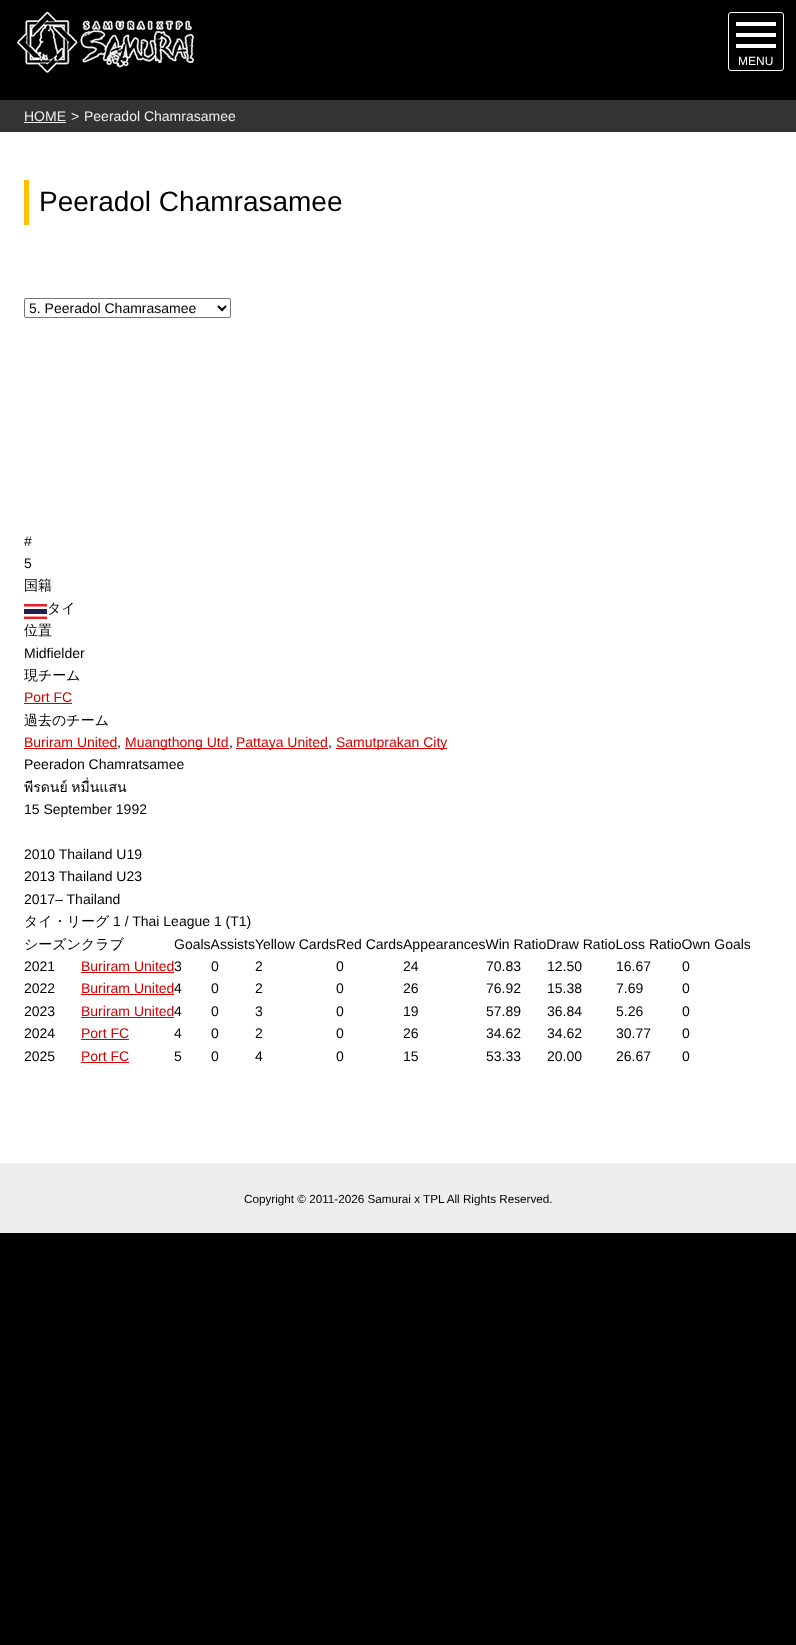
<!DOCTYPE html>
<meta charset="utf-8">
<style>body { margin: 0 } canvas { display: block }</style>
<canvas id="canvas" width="796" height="1645"></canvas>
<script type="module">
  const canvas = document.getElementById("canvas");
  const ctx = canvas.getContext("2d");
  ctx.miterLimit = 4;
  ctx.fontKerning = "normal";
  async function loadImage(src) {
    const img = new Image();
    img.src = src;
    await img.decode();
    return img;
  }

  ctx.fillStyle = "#000000";
  ctx.fillRect(0, 0, 796, 1645);
  ctx.drawImage(await loadImage("img1.png"), 17, 12, 177, 61);
  ctx.beginPath();
  ctx.roundRect(728.5, 12.5, 55, 58, 2.5);
  ctx.strokeStyle = "#ffffff";
  ctx.stroke();
  ctx.fillStyle = "#ffffff";
  ctx.fillRect(736, 22, 40, 4);
  ctx.fillRect(736, 33, 40, 4);
  ctx.fillRect(736, 44, 40, 4);
  ctx.font = "12px Liberation Sans";
  ctx.fillText("MENU", 738, 65);
  ctx.fillStyle = "#333333";
  ctx.fillRect(0, 100, 796, 32);
  ctx.font = "14px Liberation Sans";
  ctx.fillStyle = "#eeeeee";
  ctx.fillText("HOME", 24, 121);
  ctx.fillRect(24, 122, 42, 1);
  ctx.fillText(">", 71, 121);
  ctx.fillText("Peeradol Chamrasamee", 84, 121);
  ctx.fillStyle = "#ffffff";
  ctx.fillRect(0, 132, 796, 1031);
  ctx.fillStyle = "#ffbf00";
  ctx.fillRect(24, 180, 5, 45);
  ctx.font = "28px Liberation Sans";
  ctx.fillStyle = "#000000";
  ctx.fillText("Peeradol Chamrasamee", 39, 211);
  ctx.beginPath();
  ctx.roundRect(24.5, 298.5, 206, 19, 1.5);
  ctx.strokeStyle = "#767676";
  ctx.stroke();
  ctx.beginPath();
  ctx.moveTo(218, 306);
  ctx.lineTo(222, 310);
  ctx.lineTo(226, 306);
  ctx.strokeStyle = "#000000";
  ctx.lineWidth = 2;
  ctx.stroke();
  ctx.font = "14px Liberation Sans";
  ctx.fillText("5. Peeradol Chamrasamee", 29, 313);
  ctx.fillText("#", 24, 546);
  ctx.fillText("5", 24, 568);
  ctx.font = "500 14px WenQuanYi Zen Hei";
  ctx.fillText("国籍", 24, 590);
  ctx.drawImage(await loadImage("img2.png"), 24, 604, 23, 15);
  ctx.fillText("タイ", 47, 613);
  ctx.fillText("位置", 24, 635);
  ctx.font = "14px Liberation Sans";
  ctx.fillText("Midfielder", 24, 658);
  ctx.font = "500 14px WenQuanYi Zen Hei";
  ctx.fillText("現チーム", 24, 680);
  ctx.font = "14px Liberation Sans";
  ctx.fillStyle = "#d30000";
  ctx.fillText("Port FC", 24, 702);
  ctx.fillRect(24, 703, 48, 1);
  ctx.font = "500 14px WenQuanYi Zen Hei";
  ctx.fillStyle = "#000000";
  ctx.fillText("過去のチーム", 24, 725);
  ctx.font = "14px Liberation Sans";
  ctx.fillStyle = "#d30000";
  ctx.fillText("Buriram United", 24, 747);
  ctx.fillRect(24, 748, 93, 1);
  ctx.fillStyle = "#000000";
  ctx.fillText(",", 117, 747);
  ctx.fillStyle = "#d30000";
  ctx.fillRect(125, 748, 104, 1);
  ctx.fillText("Muangthong Utd", 125, 747);
  ctx.fillStyle = "#000000";
  ctx.fillText(",", 229, 747);
  ctx.fillStyle = "#d30000";
  ctx.fillRect(236, 748, 92, 1);
  ctx.fillText("Pattaya United", 236, 747);
  ctx.fillStyle = "#000000";
  ctx.fillText(",", 328, 747);
  ctx.fillStyle = "#d30000";
  ctx.fillRect(336, 748, 111, 1);
  ctx.fillText("Samutprakan City", 336, 747);
  ctx.fillStyle = "#000000";
  ctx.fillText("Peeradon Chamratsamee", 24, 769);
  ctx.wordSpacing = "-1px";
  ctx.font = "14px Loma";
  ctx.fillText("พีรดนย์ หมื่นแสน", 24, 792);
  ctx.wordSpacing = "0px";
  ctx.font = "14px Liberation Sans";
  ctx.fillText("15 September 1992", 24, 814);
  ctx.fillText("2010 Thailand U19", 24, 859);
  ctx.fillText("2013 Thailand U23", 24, 881);
  ctx.fillText("2017– Thailand", 24, 904);
  ctx.font = "500 14px WenQuanYi Zen Hei";
  ctx.fillText("タイ・リーグ", 24, 926);
  ctx.font = "14px Liberation Sans";
  ctx.fillText("1 / Thai League 1 (T1)", 113, 926);
  ctx.font = "500 14px WenQuanYi Zen Hei";
  ctx.fillText("シーズンクラブ", 24, 949);
  ctx.font = "14px Liberation Sans";
  ctx.fillText("GoalsAssistsYellow CardsRed CardsAppearancesWin RatioDraw RatioLoss RatioOwn Goals", 174, 949);
  ctx.fillText("2021", 24, 971);
  ctx.fillStyle = "#d30000";
  ctx.fillText("Buriram United", 81, 971);
  ctx.fillRect(81, 972, 93, 1);
  ctx.fillStyle = "#000000";
  ctx.fillText("3", 174, 971);
  ctx.fillText("0", 211, 971);
  ctx.fillText("2", 255, 971);
  ctx.fillText("0", 336, 971);
  ctx.fillText("24", 403, 971);
  ctx.fillText("70.83", 486, 971);
  ctx.fillText("12.50", 547, 971);
  ctx.fillText("16.67", 616, 971);
  ctx.fillText("0", 682, 971);
  ctx.fillText("2022", 24, 993);
  ctx.fillStyle = "#d30000";
  ctx.fillText("Buriram United", 81, 993);
  ctx.fillRect(81, 994, 93, 1);
  ctx.fillStyle = "#000000";
  ctx.fillText("4", 174, 993);
  ctx.fillText("0", 211, 993);
  ctx.fillText("2", 255, 993);
  ctx.fillText("0", 336, 993);
  ctx.fillText("26", 403, 993);
  ctx.fillText("76.92", 486, 993);
  ctx.fillText("15.38", 547, 993);
  ctx.fillText("7.69", 616, 993);
  ctx.fillText("0", 682, 993);
  ctx.fillText("2023", 24, 1016);
  ctx.fillStyle = "#d30000";
  ctx.fillText("Buriram United", 81, 1016);
  ctx.fillRect(81, 1017, 93, 1);
  ctx.fillStyle = "#000000";
  ctx.fillText("4", 174, 1016);
  ctx.fillText("0", 211, 1016);
  ctx.fillText("3", 255, 1016);
  ctx.fillText("0", 336, 1016);
  ctx.fillText("19", 403, 1016);
  ctx.fillText("57.89", 486, 1016);
  ctx.fillText("36.84", 547, 1016);
  ctx.fillText("5.26", 616, 1016);
  ctx.fillText("0", 682, 1016);
  ctx.fillText("2024", 24, 1038);
  ctx.fillStyle = "#d30000";
  ctx.fillText("Port FC", 81, 1038);
  ctx.fillRect(81, 1039, 48, 1);
  ctx.fillStyle = "#000000";
  ctx.fillText("4", 174, 1038);
  ctx.fillText("0", 211, 1038);
  ctx.fillText("2", 255, 1038);
  ctx.fillText("0", 336, 1038);
  ctx.fillText("26", 403, 1038);
  ctx.fillText("34.62", 486, 1038);
  ctx.fillText("34.62", 547, 1038);
  ctx.fillText("30.77", 616, 1038);
  ctx.fillText("0", 682, 1038);
  ctx.fillText("2025", 24, 1061);
  ctx.fillStyle = "#d30000";
  ctx.fillText("Port FC", 81, 1061);
  ctx.fillRect(81, 1062, 48, 1);
  ctx.fillStyle = "#000000";
  ctx.fillText("5", 174, 1061);
  ctx.fillText("0", 211, 1061);
  ctx.fillText("4", 255, 1061);
  ctx.fillText("0", 336, 1061);
  ctx.fillText("15", 403, 1061);
  ctx.fillText("53.33", 486, 1061);
  ctx.fillText("20.00", 547, 1061);
  ctx.fillText("26.67", 616, 1061);
  ctx.fillText("0", 682, 1061);
  ctx.fillStyle = "#eeeeee";
  ctx.fillRect(0, 1163, 796, 70);
  ctx.font = "11.7px Liberation Sans";
  ctx.fillStyle = "#000000";
  ctx.fillText("Copyright © 2011-2026 Samurai x TPL All Rights Reserved.", 244, 1203);
</script>
